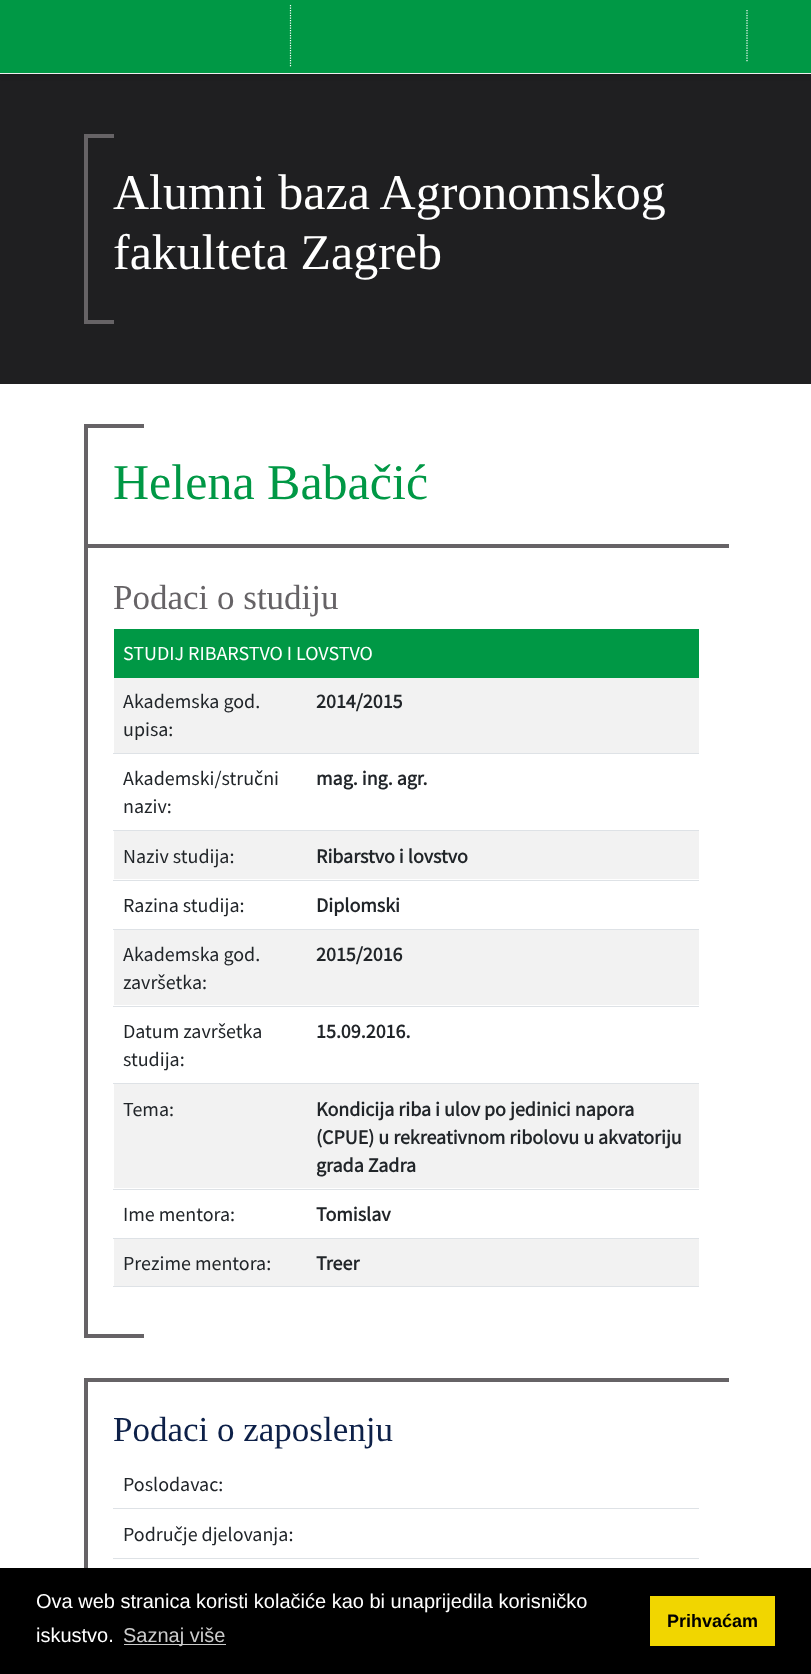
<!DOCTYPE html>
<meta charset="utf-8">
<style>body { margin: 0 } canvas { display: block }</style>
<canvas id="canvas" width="811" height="1674"></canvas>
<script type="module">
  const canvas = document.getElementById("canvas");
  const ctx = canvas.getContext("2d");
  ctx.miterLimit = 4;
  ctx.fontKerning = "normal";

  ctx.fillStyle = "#ffffff";
  ctx.fillRect(0, 0, 811, 1674);
  ctx.fillStyle = "#1f1f21";
  ctx.fillRect(0, 74, 811, 310);
  ctx.fillStyle = "rgba(0, 0, 0, 0.2)";
  ctx.filter = "blur(3px)";
  ctx.beginPath();
  ctx.rect(0, 0, 811, 74);
  ctx.fill();
  ctx.filter = "none";
  ctx.fillStyle = "#009845";
  ctx.fillRect(0, 0, 811, 73);
  ctx.fillStyle = "#eeeeee";
  ctx.fillRect(0, 73, 811, 1);
  ctx.beginPath();
  ctx.moveTo(290.5, 5);
  ctx.lineTo(290.5, 67.5);
  ctx.strokeStyle = "#ffffff";
  ctx.lineWidth = 1.2;
  ctx.setLineDash([1.25, 1.25]);
  ctx.stroke();
  ctx.beginPath();
  ctx.moveTo(747, 10);
  ctx.lineTo(747, 62.5);
  ctx.stroke();
  ctx.fillStyle = "#666366";
  ctx.fillRect(84, 134, 30, 4);
  ctx.font = "50px Liberation Serif";
  ctx.fillStyle = "#ffffff";
  ctx.fillText("Alumni baza Agronomskog", 113, 209);
  ctx.save();
  ctx.beginPath();
  ctx.rect(84, 134, 30, 190);
  ctx.clip();
  ctx.fillStyle = "#666366";
  ctx.beginPath();
  ctx.moveTo(-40, 10);
  ctx.lineTo(238, 10);
  ctx.lineTo(238, 448);
  ctx.lineTo(-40, 448);
  ctx.closePath();
  ctx.moveTo(88, 130);
  ctx.lineTo(118, 130);
  ctx.lineTo(118, 320);
  ctx.lineTo(88, 320);
  ctx.closePath();
  ctx.fill("evenodd");
  ctx.restore();
  ctx.fillText("fakulteta Zagreb", 113, 269);
  ctx.fillStyle = "#666366";
  ctx.fillRect(84, 424, 60, 4);
  ctx.fillRect(84, 1334, 60, 4);
  ctx.fillRect(84, 544, 645, 4);
  ctx.fillRect(84, 424, 4, 914);
  ctx.fillStyle = "#009845";
  ctx.fillText("Helena Babačić", 113, 499);
  ctx.font = "35px Liberation Serif";
  ctx.fillStyle = "#666366";
  ctx.fillText("Podaci o studiju", 113, 609);
  ctx.fillStyle = "#009845";
  ctx.fillRect(114, 629, 585, 49);
  ctx.font = "20px Source Sans Pro";
  ctx.fillStyle = "#ffffff";
  ctx.fillText("STUDIJ RIBARSTVO I LOVSTVO", 123, 660);
  ctx.fillStyle = "#f2f2f2";
  ctx.fillRect(114, 678, 585, 75);
  ctx.fillStyle = "#212529";
  ctx.fillText("Akademska god.", 123, 708);
  ctx.fillText("upisa:", 123, 736);
  ctx.fillStyle = "#dee2e6";
  ctx.fillRect(113, 753, 586, 1);
  ctx.font = "bold 20px Source Sans Pro";
  ctx.fillStyle = "#212529";
  ctx.fillText("2014/2015", 316, 708);
  ctx.font = "20px Source Sans Pro";
  ctx.fillText("Akademski/stručni", 123, 785);
  ctx.fillText("naziv:", 123, 813);
  ctx.fillStyle = "#dee2e6";
  ctx.fillRect(113, 830, 586, 1);
  ctx.font = "bold 20px Source Sans Pro";
  ctx.fillStyle = "#212529";
  ctx.fillText("mag. ing. agr.", 316, 785);
  ctx.fillStyle = "#f2f2f2";
  ctx.fillRect(114, 831, 585, 48);
  ctx.font = "20px Source Sans Pro";
  ctx.fillStyle = "#212529";
  ctx.fillText("Naziv studija:", 123, 863);
  ctx.fillStyle = "#dee2e6";
  ctx.fillRect(113, 880, 586, 1);
  ctx.font = "bold 20px Source Sans Pro";
  ctx.fillStyle = "#212529";
  ctx.fillText("Ribarstvo i lovstvo", 316, 863);
  ctx.font = "20px Source Sans Pro";
  ctx.fillText("Razina studija:", 123, 912);
  ctx.fillStyle = "#dee2e6";
  ctx.fillRect(113, 929, 586, 1);
  ctx.font = "bold 20px Source Sans Pro";
  ctx.fillStyle = "#212529";
  ctx.fillText("Diplomski", 316, 912);
  ctx.fillStyle = "#f2f2f2";
  ctx.fillRect(114, 930, 585, 75);
  ctx.font = "20px Source Sans Pro";
  ctx.fillStyle = "#212529";
  ctx.fillText("Akademska god.", 123, 961);
  ctx.fillText("završetka:", 123, 989);
  ctx.fillStyle = "#dee2e6";
  ctx.fillRect(113, 1006, 586, 1);
  ctx.font = "bold 20px Source Sans Pro";
  ctx.fillStyle = "#212529";
  ctx.fillText("2015/2016", 316, 961);
  ctx.font = "20px Source Sans Pro";
  ctx.fillText("Datum završetka", 123, 1038);
  ctx.fillText("studija:", 123, 1066);
  ctx.fillStyle = "#dee2e6";
  ctx.fillRect(113, 1083, 586, 1);
  ctx.font = "bold 20px Source Sans Pro";
  ctx.fillStyle = "#212529";
  ctx.fillText("15.09.2016.", 316, 1038);
  ctx.fillStyle = "#f2f2f2";
  ctx.fillRect(114, 1084, 585, 104);
  ctx.font = "20px Source Sans Pro";
  ctx.fillStyle = "#212529";
  ctx.fillText("Tema:", 123, 1116);
  ctx.fillStyle = "#dee2e6";
  ctx.fillRect(113, 1189, 586, 1);
  ctx.font = "bold 20px Source Sans Pro";
  ctx.fillStyle = "#212529";
  ctx.fillText("Kondicija riba i ulov po jedinici napora", 316, 1116);
  ctx.fillText("(CPUE) u rekreativnom ribolovu u akvatoriju", 316, 1144);
  ctx.fillText("grada Zadra", 316, 1172);
  ctx.font = "20px Source Sans Pro";
  ctx.fillText("Ime mentora:", 123, 1221);
  ctx.fillStyle = "#dee2e6";
  ctx.fillRect(113, 1238, 586, 1);
  ctx.font = "bold 20px Source Sans Pro";
  ctx.fillStyle = "#212529";
  ctx.fillText("Tomislav", 316, 1221);
  ctx.fillStyle = "#f2f2f2";
  ctx.fillRect(114, 1239, 585, 47);
  ctx.font = "20px Source Sans Pro";
  ctx.fillStyle = "#212529";
  ctx.fillText("Prezime mentora:", 123, 1270);
  ctx.fillStyle = "#dee2e6";
  ctx.fillRect(113, 1286, 586, 1);
  ctx.font = "bold 20px Source Sans Pro";
  ctx.fillStyle = "#212529";
  ctx.fillText("Treer", 316, 1270);
  ctx.fillStyle = "#666366";
  ctx.fillRect(84, 1378, 4, 190);
  ctx.fillRect(84, 1378, 645, 4);
  ctx.font = "35px Liberation Serif";
  ctx.fillStyle = "#0d2048";
  ctx.fillText("Podaci o zaposlenju", 113, 1441);
  ctx.font = "20px Source Sans Pro";
  ctx.fillStyle = "#212529";
  ctx.fillText("Poslodavac:", 123, 1491);
  ctx.fillStyle = "#dee2e6";
  ctx.fillRect(113, 1508, 586, 1);
  ctx.fillStyle = "#212529";
  ctx.fillText("Područje djelovanja:", 123, 1541);
  ctx.fillStyle = "#dee2e6";
  ctx.fillRect(113, 1558, 586, 1);
  ctx.fillStyle = "#000000";
  ctx.fillRect(0, 1568, 811, 106);
  ctx.font = "20px Liberation Sans";
  ctx.fillStyle = "#ffffff";
  ctx.fillText("Ova web stranica koristi kolačiće kao bi unaprijedila korisničko", 36, 1608);
  ctx.fillText("iskustvo.", 36, 1642);
  ctx.fillStyle = "#cccccc";
  ctx.fillRect(124, 1644, 102, 1);
  ctx.fillText("Saznaj više", 123, 1642);
  ctx.fillStyle = "#f1d600";
  ctx.fillRect(650, 1596, 125, 50);
  ctx.font = "bold 18px Liberation Sans";
  ctx.fillStyle = "#000000";
  ctx.fillText("Prihvaćam", 667, 1627);
</script>
